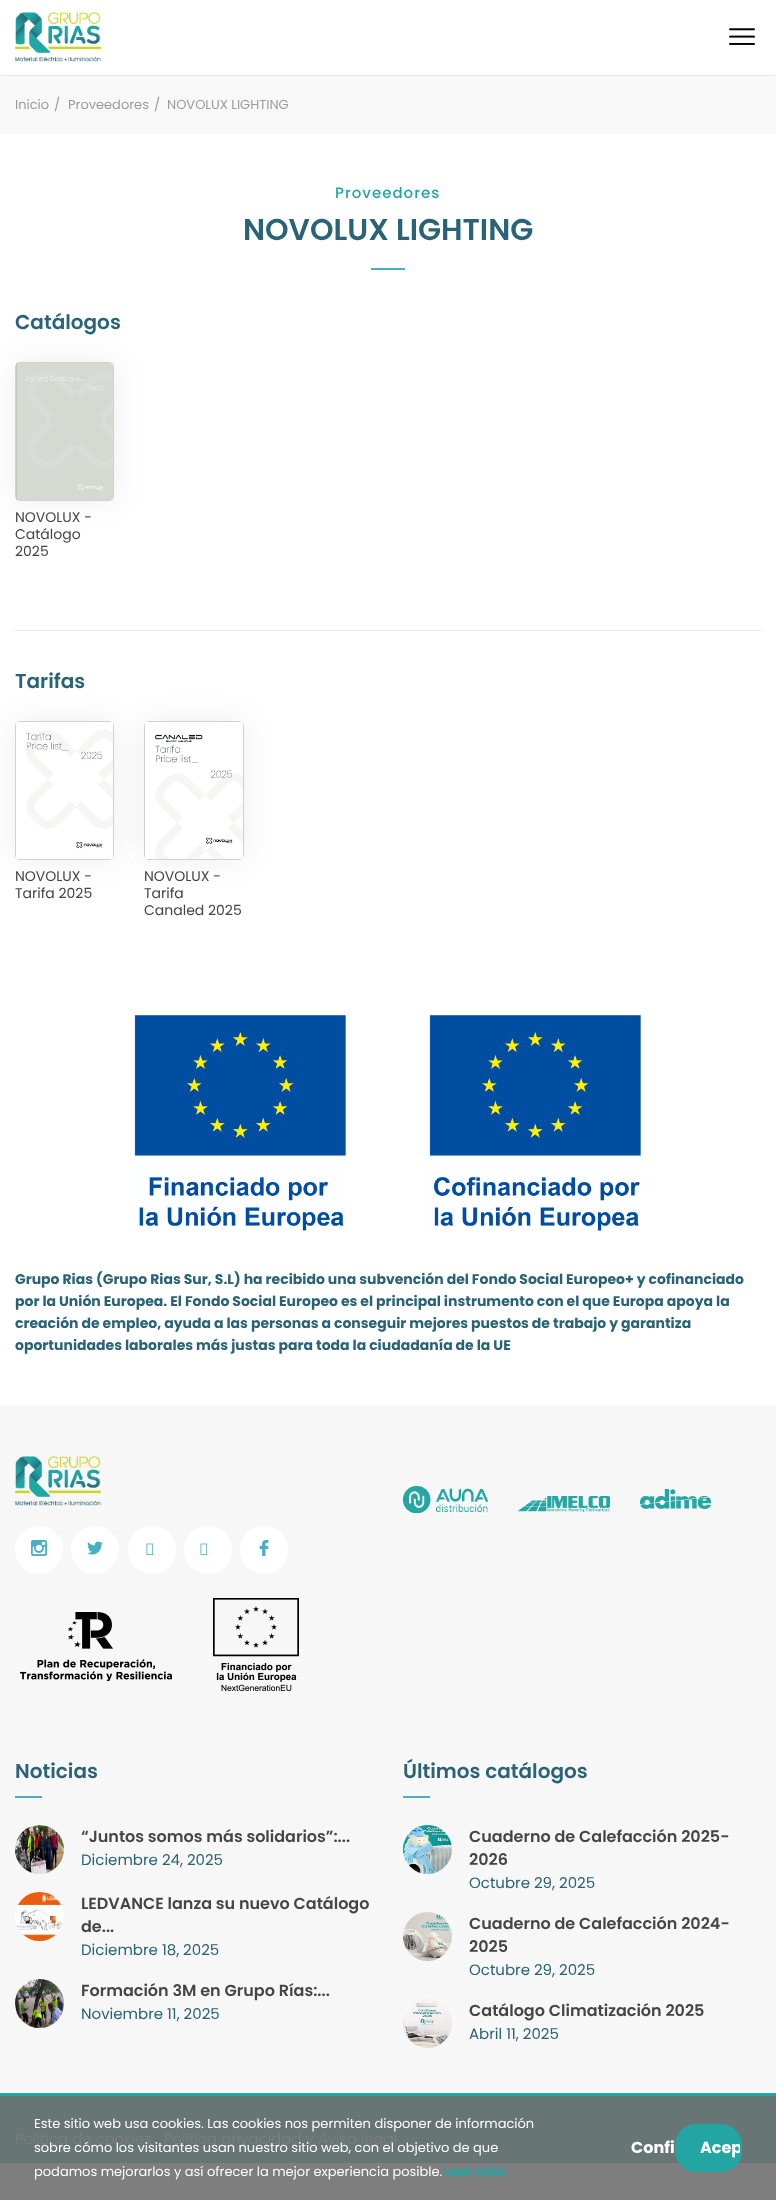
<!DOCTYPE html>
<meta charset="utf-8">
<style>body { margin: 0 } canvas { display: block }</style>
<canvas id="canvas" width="776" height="2200"></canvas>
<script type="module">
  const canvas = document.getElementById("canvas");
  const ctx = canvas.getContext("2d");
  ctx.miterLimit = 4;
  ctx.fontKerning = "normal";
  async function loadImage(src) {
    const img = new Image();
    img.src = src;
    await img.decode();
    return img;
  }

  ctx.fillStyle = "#ffffff";
  ctx.fillRect(0, 0, 776, 2200);
  ctx.fillStyle = "#7e7e7e";
  ctx.fillRect(0, 2163, 776, 37);
  ctx.save();
  ctx.beginPath();
  ctx.rect(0, 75, 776, 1);
  ctx.clip();
  ctx.fillStyle = "rgba(0, 0, 0, 0.1)";
  ctx.filter = "blur(1.5px)";
  ctx.beginPath();
  ctx.rect(0, 3, 776, 75);
  ctx.fill();
  ctx.filter = "none";
  ctx.restore();
  ctx.drawImage(await loadImage("img1.png"), 15, 12, 86, 50);
  ctx.drawImage(await loadImage("img2.png"), 729, 28, 26, 17);
  ctx.fillStyle = "#f8f8f8";
  ctx.fillRect(0, 76, 776, 58);
  ctx.font = "13px Poppins";
  ctx.fillStyle = "#9b9b9b";
  ctx.fillText("Inicio", 15, 109);
  ctx.fillText("/", 54, 109);
  ctx.fillText("Proveedores", 68, 109);
  ctx.fillText("/", 154, 109);
  ctx.fillText("NOVOLUX LIGHTING", 167, 109);
  ctx.letterSpacing = "1px";
  ctx.font = "500 15px Poppins";
  ctx.fillStyle = "#23a6a3";
  ctx.fillText("Proveedores", 335, 198);
  ctx.letterSpacing = "0px";
  ctx.font = "600 30px Poppins";
  ctx.fillStyle = "#296375";
  ctx.fillText("NOVOLUX LIGHTING", 243, 240);
  ctx.fillStyle = "#49b0c1";
  ctx.fillRect(371, 268, 34, 2);
  ctx.font = "600 20px Poppins";
  ctx.fillStyle = "#296375";
  ctx.fillText("Catálogos", 15, 329);
  ctx.fillStyle = "rgba(0, 0, 0, 0.07)";
  ctx.filter = "blur(15px)";
  ctx.beginPath();
  ctx.roundRect(15, 362, 99, 139, 5);
  ctx.fill();
  ctx.filter = "none";
  ctx.beginPath();
  ctx.roundRect(15.5, 362.5, 98, 138, 4.5);
  ctx.strokeStyle = "#d1d1d1";
  ctx.stroke();
  ctx.drawImage(await loadImage("img3.png"), 16, 363, 97, 137);
  ctx.font = "14px Poppins";
  ctx.fillStyle = "#454545";
  ctx.fillText("NOVOLUX -", 15, 522);
  ctx.fillText("Catálogo", 15, 539);
  ctx.fillText("2025", 15, 556);
  ctx.fillStyle = "#e6e6e6";
  ctx.fillRect(15, 630, 746, 1);
  ctx.font = "600 20px Poppins";
  ctx.fillStyle = "#296375";
  ctx.fillText("Tarifas", 15, 688);
  ctx.fillStyle = "rgba(0, 0, 0, 0.07)";
  ctx.filter = "blur(15px)";
  ctx.beginPath();
  ctx.roundRect(15, 721, 99, 139, 5);
  ctx.fill();
  ctx.filter = "none";
  ctx.beginPath();
  ctx.roundRect(15.5, 721.5, 98, 138, 4.5);
  ctx.stroke();
  ctx.drawImage(await loadImage("img4.png"), 16, 722, 97, 137);
  ctx.font = "14px Poppins";
  ctx.fillStyle = "#454545";
  ctx.fillText("NOVOLUX -", 15, 881);
  ctx.fillText("Tarifa 2025", 15, 898);
  ctx.fillStyle = "rgba(0, 0, 0, 0.07)";
  ctx.filter = "blur(15px)";
  ctx.beginPath();
  ctx.roundRect(144, 721, 100, 139, 5);
  ctx.fill();
  ctx.filter = "none";
  ctx.beginPath();
  ctx.roundRect(144.5, 721.5, 99, 138, 4.5);
  ctx.stroke();
  ctx.drawImage(await loadImage("img5.png"), 145, 722, 98, 137);
  ctx.fillStyle = "#454545";
  ctx.fillText("NOVOLUX -", 144, 881);
  ctx.fillText("Tarifa", 144, 898);
  ctx.fillText("Canaled 2025", 144, 915);
  ctx.drawImage(await loadImage("img6.png"), 134, 1015, 212, 216);
  ctx.drawImage(await loadImage("img7.png"), 429, 1015, 212, 216);
  ctx.font = "bold 14px Poppins";
  ctx.fillStyle = "#296375";
  ctx.fillText("Grupo Rias (Grupo Rias Sur, S.L) ha recibido una subvención del Fondo Social Europeo+ y cofinanciado", 15, 1284);
  ctx.fillText("por la Unión Europea. El Fondo Social Europeo es el principal instrumento con el que Europa apoya la", 15, 1306);
  ctx.fillText("creación de empleo, ayuda a las personas a conseguir mejores puestos de trabajo y garantiza", 15, 1328);
  ctx.fillText("oportunidades laborales más justas para toda la ciudadanía de la UE", 15, 1350);
  ctx.fillStyle = "#f7f7f7";
  ctx.fillRect(0, 1406, 776, 687);
  ctx.drawImage(await loadImage("img8.png"), 15, 1456, 86, 50);
  ctx.fillStyle = "#ffffff";
  ctx.beginPath();
  ctx.arc(39, 1550, 24, 0, Math.PI * 2);
  ctx.fill();
  ctx.drawImage(await loadImage("img9.png"), 31, 1540, 16, 16);
  ctx.beginPath();
  ctx.arc(95, 1550, 24, 0, Math.PI * 2);
  ctx.fill();
  ctx.drawImage(await loadImage("img10.png"), 87, 1541, 16, 14);
  ctx.beginPath();
  ctx.arc(152, 1550, 24, 0, Math.PI * 2);
  ctx.fill();
  ctx.drawImage(await loadImage("img11.png"), 146, 1543, 8, 12);
  ctx.beginPath();
  ctx.arc(208, 1550, 24, 0, Math.PI * 2);
  ctx.fill();
  ctx.drawImage(await loadImage("img11.png"), 200, 1543, 8, 12);
  ctx.beginPath();
  ctx.arc(264, 1550, 24, 0, Math.PI * 2);
  ctx.fill();
  ctx.drawImage(await loadImage("img12.png"), 259, 1540, 10, 16);
  ctx.drawImage(await loadImage("img13.png"), 20, 1612, 152, 69);
  ctx.drawImage(await loadImage("img14.png"), 213, 1598, 86, 93);
  ctx.drawImage(await loadImage("img15.png"), 403, 1486, 85, 27);
  ctx.drawImage(await loadImage("img16.png"), 518, 1496, 92, 16);
  ctx.drawImage(await loadImage("img17.png"), 640, 1489, 71, 20);
  ctx.font = "600 20px Poppins";
  ctx.fillStyle = "#296375";
  ctx.fillText("Noticias", 15, 1778);
  ctx.fillStyle = "#49b0c1";
  ctx.fillRect(15, 1796, 27, 2);
  ctx.drawImage(await loadImage("img18.png"), 15, 1825, 49, 49);
  ctx.font = "600 16px Poppins";
  ctx.fillStyle = "#454545";
  ctx.fillText("“Juntos somos más solidarios”:...", 81, 1842);
  ctx.font = "15px Poppins";
  ctx.fillStyle = "#296375";
  ctx.fillText("Diciembre 24, 2025", 81, 1865);
  ctx.drawImage(await loadImage("img19.png"), 15, 1892, 49, 49);
  ctx.font = "600 16px Poppins";
  ctx.fillStyle = "#454545";
  ctx.fillText("LEDVANCE lanza su nuevo Catálogo", 81, 1909);
  ctx.fillText("de...", 81, 1932);
  ctx.font = "15px Poppins";
  ctx.fillStyle = "#296375";
  ctx.fillText("Diciembre 18, 2025", 81, 1955);
  ctx.drawImage(await loadImage("img20.png"), 15, 1979, 49, 49);
  ctx.font = "600 16px Poppins";
  ctx.fillStyle = "#454545";
  ctx.fillText("Formación 3M en Grupo Rías:...", 81, 1996);
  ctx.font = "15px Poppins";
  ctx.fillStyle = "#296375";
  ctx.fillText("Noviembre 11, 2025", 81, 2019);
  ctx.font = "600 20px Poppins";
  ctx.fillText("Últimos catálogos", 403, 1778);
  ctx.fillStyle = "#49b0c1";
  ctx.fillRect(403, 1796, 27, 2);
  ctx.drawImage(await loadImage("img21.png"), 403, 1825, 49, 49);
  ctx.font = "600 16px Poppins";
  ctx.fillStyle = "#454545";
  ctx.fillText("Cuaderno de Calefacción 2025-", 469, 1842);
  ctx.fillText("2026", 469, 1865);
  ctx.font = "15px Poppins";
  ctx.fillStyle = "#296375";
  ctx.fillText("Octubre 29, 2025", 469, 1888);
  ctx.drawImage(await loadImage("img22.png"), 403, 1912, 49, 49);
  ctx.font = "600 16px Poppins";
  ctx.fillStyle = "#454545";
  ctx.fillText("Cuaderno de Calefacción 2024-", 469, 1929);
  ctx.fillText("2025", 469, 1952);
  ctx.font = "15px Poppins";
  ctx.fillStyle = "#296375";
  ctx.fillText("Octubre 29, 2025", 469, 1975);
  ctx.drawImage(await loadImage("img23.png"), 403, 1999, 49, 49);
  ctx.font = "600 16px Poppins";
  ctx.fillStyle = "#454545";
  ctx.fillText("Catálogo Climatización 2025", 469, 2016);
  ctx.font = "15px Poppins";
  ctx.fillStyle = "#296375";
  ctx.fillText("Abril 11, 2025", 469, 2039);
  ctx.fillStyle = "#23a6a3";
  ctx.fillRect(0, 2093, 776, 3);
  ctx.fillStyle = "#687575";
  ctx.fillRect(0, 2096, 776, 67);
  ctx.font = "300 15px Poppins";
  ctx.fillStyle = "#7e7e7e";
  ctx.fillText("Política de cookies", 15, 2144);
  ctx.fillText("Política privacidad y Aviso legal", 164, 2144);
  ctx.font = "13px Poppins";
  ctx.fillStyle = "#ffffff";
  ctx.fillText("Este sitio web usa cookies. Las cookies nos permiten disponer de información", 34, 2128);
  ctx.fillText("sobre cómo los visitantes usan nuestro sitio web, con el objetivo de que", 34, 2152);
  ctx.fillText("podamos mejorarlos y así ofrecer la mejor experiencia posible.", 34, 2176);
  ctx.font = "bold 13px Poppins";
  ctx.fillStyle = "#23a6a3";
  ctx.fillText("Leer más", 445, 2176);
  ctx.font = "bold 16px Poppins";
  ctx.fillStyle = "#ffffff";
  ctx.fillText("Confi", 631, 2153);
  ctx.fillStyle = "#23a6a3";
  ctx.beginPath();
  ctx.roundRect(676, 2125, 65, 46, 20);
  ctx.fill();
  ctx.strokeStyle = "#23a6a3";
  ctx.lineWidth = 2;
  ctx.stroke();
  ctx.save();
  ctx.beginPath();
  ctx.roundRect(677, 2126, 63, 44, 19);
  ctx.clip();
  ctx.fillStyle = "#ffffff";
  ctx.fillText("Acep", 700, 2153);
  ctx.restore();
</script>
